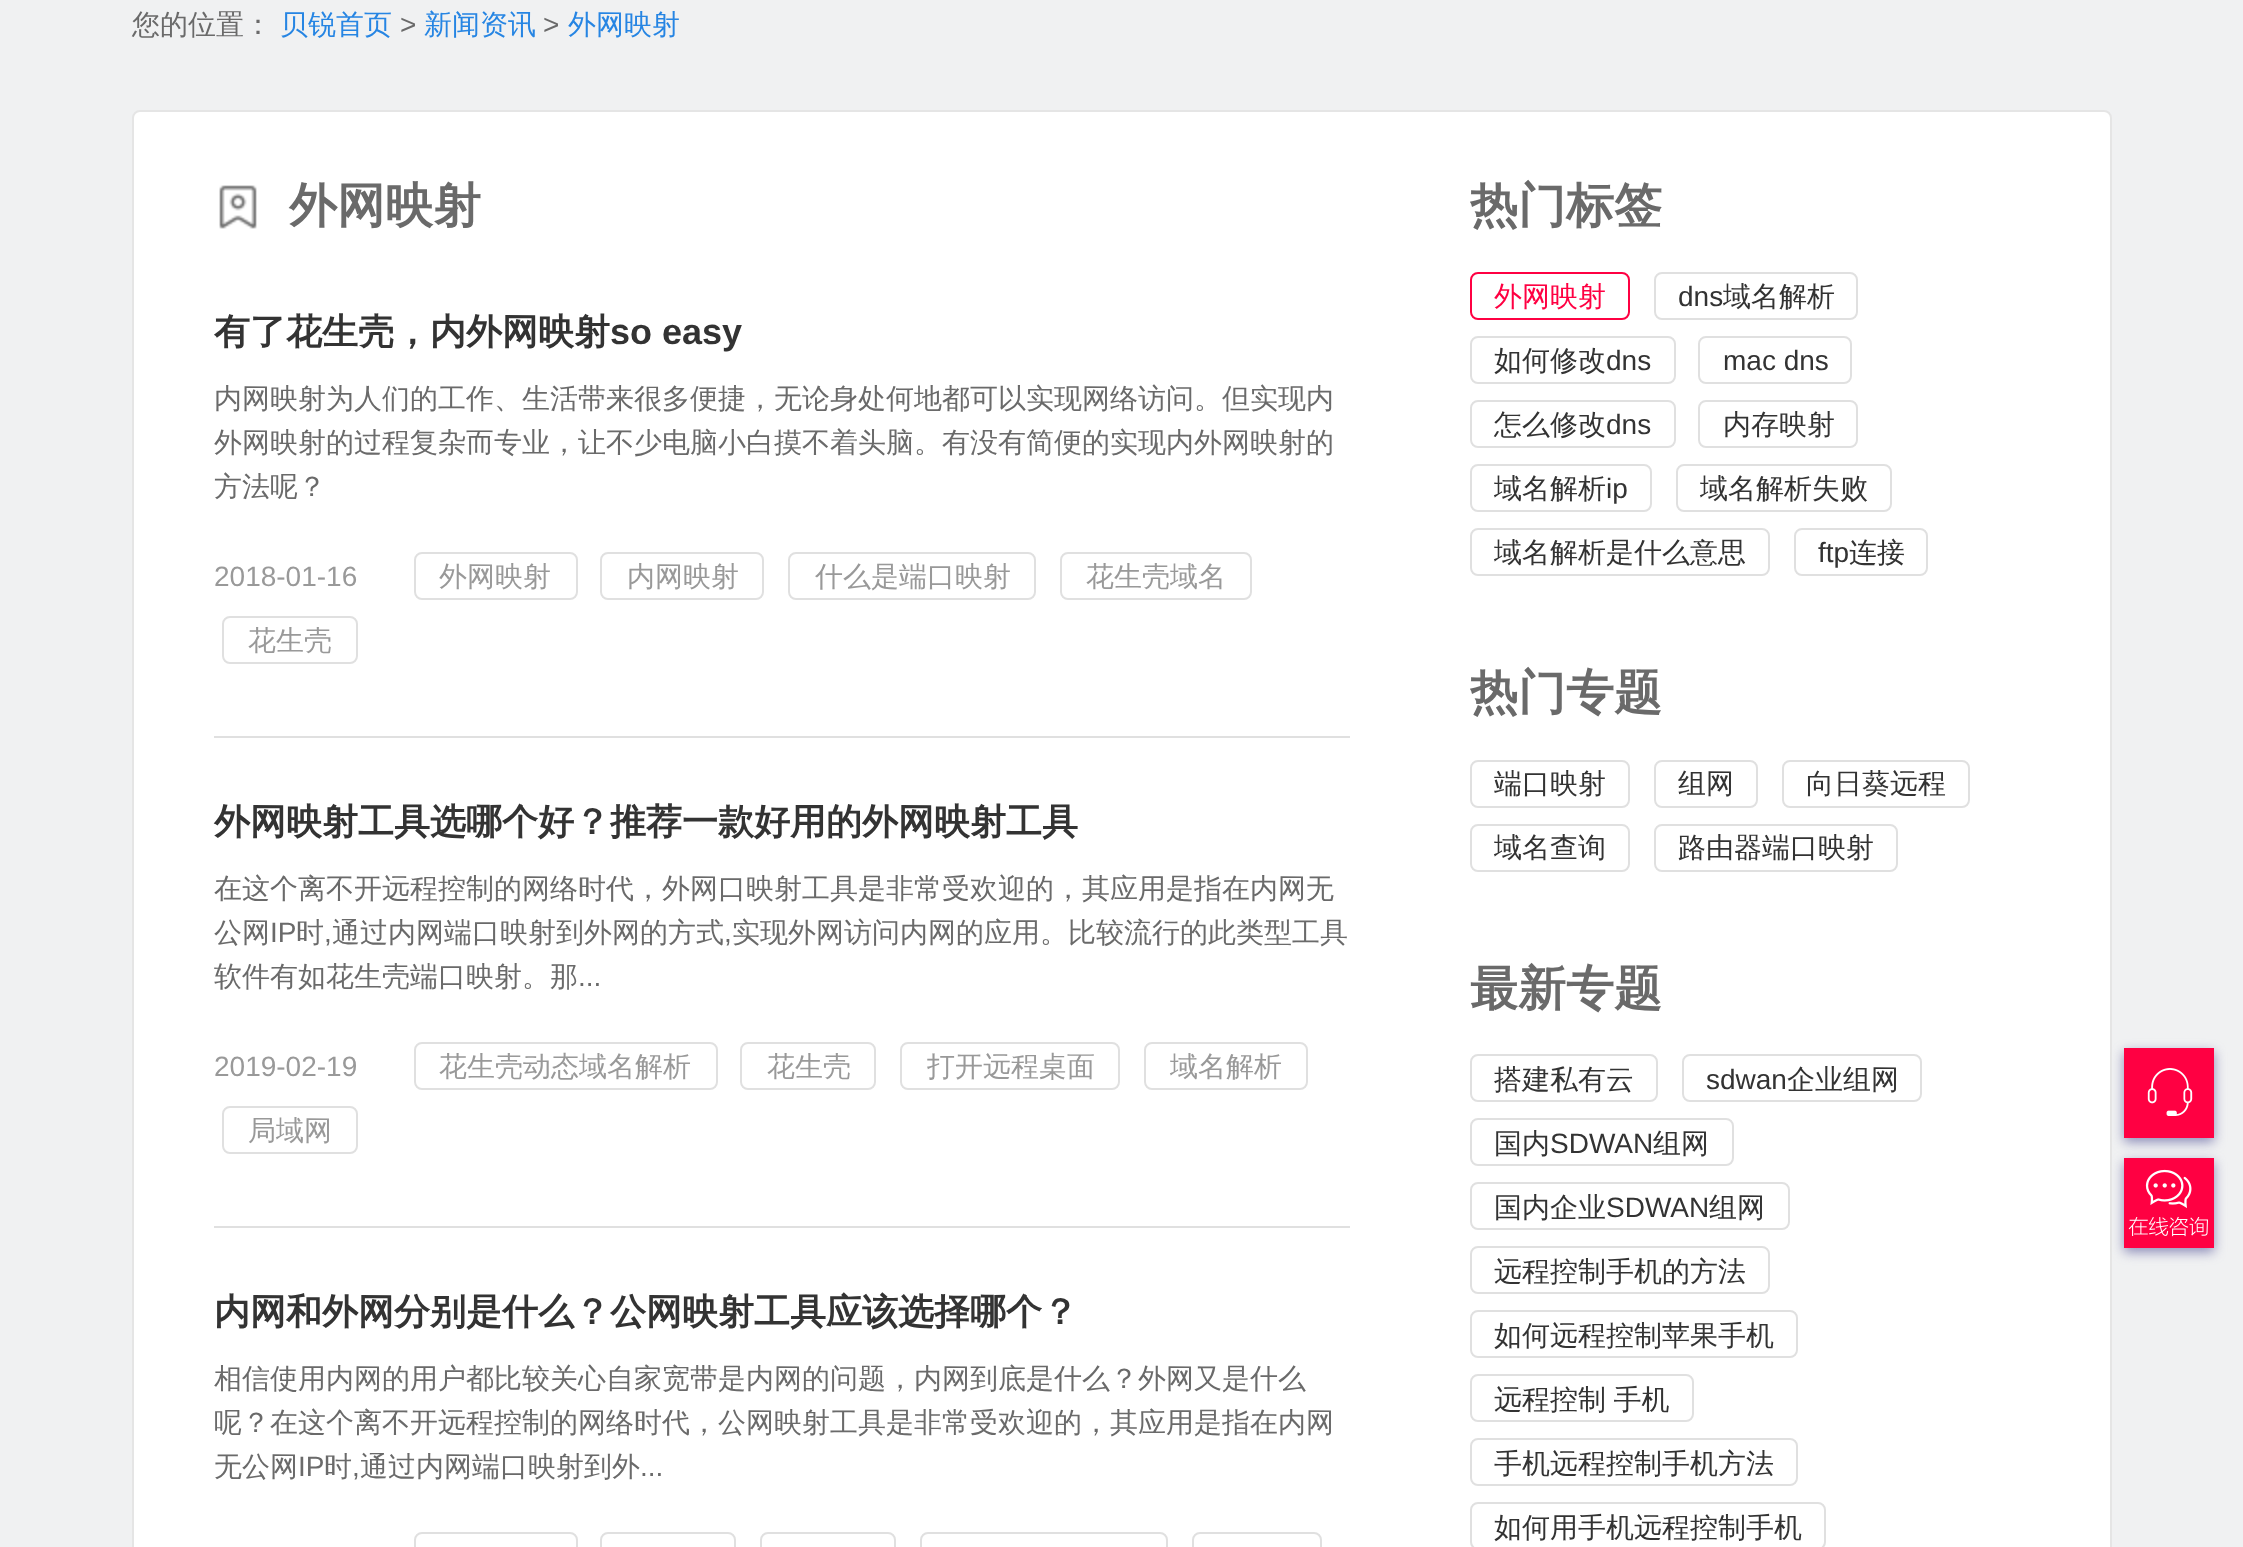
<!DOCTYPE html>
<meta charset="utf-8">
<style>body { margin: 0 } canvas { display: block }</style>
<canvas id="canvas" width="2243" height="1547"></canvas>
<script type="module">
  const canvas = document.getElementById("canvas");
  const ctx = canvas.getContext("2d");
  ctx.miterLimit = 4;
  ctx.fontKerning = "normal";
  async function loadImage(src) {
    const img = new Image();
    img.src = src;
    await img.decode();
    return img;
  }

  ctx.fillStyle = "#f0f1f2";
  ctx.fillRect(0, 0, 2243, 1547);
  ctx.font = "500 28px WenQuanYi Zen Hei";
  ctx.fillStyle = "#6a6a6a";
  ctx.fillText("您的位置：", 132, 34);
  ctx.fillStyle = "#2685e3";
  ctx.fillText("贝锐首页", 280, 34);
  ctx.font = "28px Liberation Sans";
  ctx.fillStyle = "#6a6a6a";
  ctx.fillText(">", 400, 34);
  ctx.font = "500 28px WenQuanYi Zen Hei";
  ctx.fillStyle = "#2685e3";
  ctx.fillText("新闻资讯", 424, 34);
  ctx.font = "28px Liberation Sans";
  ctx.fillStyle = "#6a6a6a";
  ctx.fillText(">", 543, 34);
  ctx.font = "500 28px WenQuanYi Zen Hei";
  ctx.fillStyle = "#2685e3";
  ctx.fillText("外网映射", 568, 34);
  ctx.fillStyle = "#ffffff";
  ctx.beginPath();
  ctx.roundRect(133, 111, 1978, 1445, 7);
  ctx.fill();
  ctx.strokeStyle = "#e5e5e5";
  ctx.lineWidth = 2;
  ctx.stroke();
  ctx.drawImage(await loadImage("img1.png"), 219, 185, 38, 44);
  ctx.font = "bold 48px WenQuanYi Zen Hei";
  ctx.fillStyle = "#6a6a6a";
  ctx.fillText("外网映射", 289, 222);
  ctx.fillStyle = "#e0e0e0";
  ctx.fillRect(214, 736, 1136, 2);
  ctx.font = "bold 36px WenQuanYi Zen Hei";
  ctx.fillStyle = "#333333";
  ctx.fillText("有了花生壳，内外网映射", 214, 344);
  ctx.font = "bold 36px Liberation Sans";
  ctx.fillText("so easy", 610, 344);
  ctx.font = "500 28px WenQuanYi Zen Hei";
  ctx.fillStyle = "#6a6a6a";
  ctx.fillText("内网映射为人们的工作、生活带来很多便捷，无论身处何地都可以实现网络访问。但实现内", 214, 408);
  ctx.fillText("外网映射的过程复杂而专业，让不少电脑小白摸不着头脑。有没有简便的实现内外网映射的", 214, 452);
  ctx.fillText("方法呢？", 214, 496);
  ctx.font = "28px Liberation Sans";
  ctx.fillStyle = "#999999";
  ctx.fillText("2018-01-16", 214, 586);
  ctx.beginPath();
  ctx.roundRect(415, 553, 162, 46, 7);
  ctx.strokeStyle = "#e0e0e0";
  ctx.stroke();
  ctx.font = "500 28px WenQuanYi Zen Hei";
  ctx.fillText("外网映射", 439, 586);
  ctx.beginPath();
  ctx.roundRect(601, 553, 162, 46, 7);
  ctx.stroke();
  ctx.fillText("内网映射", 627, 586);
  ctx.beginPath();
  ctx.roundRect(789, 553, 246, 46, 7);
  ctx.stroke();
  ctx.fillText("什么是端口映射", 815, 586);
  ctx.beginPath();
  ctx.roundRect(1061, 553, 190, 46, 7);
  ctx.stroke();
  ctx.fillText("花生壳域名", 1086, 586);
  ctx.beginPath();
  ctx.roundRect(223, 617, 134, 46, 7);
  ctx.stroke();
  ctx.fillText("花生壳", 248, 650);
  ctx.fillStyle = "#e0e0e0";
  ctx.fillRect(214, 1226, 1136, 2);
  ctx.font = "bold 36px WenQuanYi Zen Hei";
  ctx.fillStyle = "#333333";
  ctx.fillText("外网映射工具选哪个好？推荐一款好用的外网映射工具", 214, 834);
  ctx.font = "500 28px WenQuanYi Zen Hei";
  ctx.fillStyle = "#6a6a6a";
  ctx.fillText("在这个离不开远程控制的网络时代，外网口映射工具是非常受欢迎的，其应用是指在内网无", 214, 898);
  ctx.fillText("公网", 214, 942);
  ctx.font = "28px Liberation Sans";
  ctx.fillText("IP", 270, 942);
  ctx.font = "500 28px WenQuanYi Zen Hei";
  ctx.fillText("时", 296, 942);
  ctx.font = "28px Liberation Sans";
  ctx.fillText(",", 324, 942);
  ctx.font = "500 28px WenQuanYi Zen Hei";
  ctx.fillText("通过内网端口映射到外网的方式", 332, 942);
  ctx.font = "28px Liberation Sans";
  ctx.fillText(",", 724, 942);
  ctx.font = "500 28px WenQuanYi Zen Hei";
  ctx.fillText("实现外网访问内网的应用。比较流行的此类型工具", 732, 942);
  ctx.fillText("软件有如花生壳端口映射。那", 214, 986);
  ctx.font = "28px Liberation Sans";
  ctx.fillText("...", 578, 986);
  ctx.fillStyle = "#999999";
  ctx.fillText("2019-02-19", 214, 1076);
  ctx.beginPath();
  ctx.roundRect(415, 1043, 302, 46, 7);
  ctx.stroke();
  ctx.font = "500 28px WenQuanYi Zen Hei";
  ctx.fillText("花生壳动态域名解析", 439, 1076);
  ctx.beginPath();
  ctx.roundRect(741, 1043, 134, 46, 7);
  ctx.stroke();
  ctx.fillText("花生壳", 767, 1076);
  ctx.beginPath();
  ctx.roundRect(901, 1043, 218, 46, 7);
  ctx.stroke();
  ctx.fillText("打开远程桌面", 927, 1076);
  ctx.beginPath();
  ctx.roundRect(1145, 1043, 162, 46, 7);
  ctx.stroke();
  ctx.fillText("域名解析", 1170, 1076);
  ctx.beginPath();
  ctx.roundRect(223, 1107, 134, 46, 7);
  ctx.stroke();
  ctx.fillText("局域网", 248, 1140);
  ctx.font = "bold 36px WenQuanYi Zen Hei";
  ctx.fillStyle = "#333333";
  ctx.fillText("内网和外网分别是什么？公网映射工具应该选择哪个？", 214, 1324);
  ctx.font = "500 28px WenQuanYi Zen Hei";
  ctx.fillStyle = "#6a6a6a";
  ctx.fillText("相信使用内网的用户都比较关心自家宽带是内网的问题，内网到底是什么？外网又是什么", 214, 1388);
  ctx.fillText("呢？在这个离不开远程控制的网络时代，公网映射工具是非常受欢迎的，其应用是指在内网", 214, 1432);
  ctx.fillText("无公网", 214, 1476);
  ctx.font = "28px Liberation Sans";
  ctx.fillText("IP", 298, 1476);
  ctx.font = "500 28px WenQuanYi Zen Hei";
  ctx.fillText("时", 324, 1476);
  ctx.font = "28px Liberation Sans";
  ctx.fillText(",", 352, 1476);
  ctx.font = "500 28px WenQuanYi Zen Hei";
  ctx.fillText("通过内网端口映射到外", 360, 1476);
  ctx.font = "28px Liberation Sans";
  ctx.fillText("...", 640, 1476);
  ctx.beginPath();
  ctx.roundRect(415, 1533, 162, 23, 7);
  ctx.stroke();
  ctx.beginPath();
  ctx.roundRect(601, 1533, 134, 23, 7);
  ctx.stroke();
  ctx.beginPath();
  ctx.roundRect(761, 1533, 134, 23, 7);
  ctx.stroke();
  ctx.beginPath();
  ctx.roundRect(921, 1533, 246, 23, 7);
  ctx.stroke();
  ctx.beginPath();
  ctx.roundRect(1193, 1533, 128, 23, 7);
  ctx.stroke();
  ctx.font = "bold 48px WenQuanYi Zen Hei";
  ctx.fillText("热门标签", 1470, 222);
  ctx.beginPath();
  ctx.roundRect(1471, 273, 158, 46, 7);
  ctx.strokeStyle = "#ff0042";
  ctx.stroke();
  ctx.font = "500 28px WenQuanYi Zen Hei";
  ctx.fillStyle = "#ff0042";
  ctx.fillText("外网映射", 1494, 306);
  ctx.beginPath();
  ctx.roundRect(1655, 273, 202, 46, 7);
  ctx.strokeStyle = "#e0e0e0";
  ctx.stroke();
  ctx.font = "28px Liberation Sans";
  ctx.fillStyle = "#333333";
  ctx.fillText("dns", 1678, 306);
  ctx.font = "500 28px WenQuanYi Zen Hei";
  ctx.fillText("域名解析", 1723, 306);
  ctx.beginPath();
  ctx.roundRect(1471, 337, 204, 46, 7);
  ctx.stroke();
  ctx.fillText("如何修改", 1494, 370);
  ctx.font = "28px Liberation Sans";
  ctx.fillText("dns", 1606, 370);
  ctx.beginPath();
  ctx.roundRect(1699, 337, 152, 46, 7);
  ctx.stroke();
  ctx.fillText("mac dns", 1723, 370);
  ctx.beginPath();
  ctx.roundRect(1471, 401, 204, 46, 7);
  ctx.stroke();
  ctx.font = "500 28px WenQuanYi Zen Hei";
  ctx.fillText("怎么修改", 1494, 434);
  ctx.font = "28px Liberation Sans";
  ctx.fillText("dns", 1606, 434);
  ctx.beginPath();
  ctx.roundRect(1699, 401, 158, 46, 7);
  ctx.stroke();
  ctx.font = "500 28px WenQuanYi Zen Hei";
  ctx.fillText("内存映射", 1723, 434);
  ctx.beginPath();
  ctx.roundRect(1471, 465, 180, 46, 7);
  ctx.stroke();
  ctx.fillText("域名解析", 1494, 498);
  ctx.font = "28px Liberation Sans";
  ctx.fillText("ip", 1606, 498);
  ctx.beginPath();
  ctx.roundRect(1677, 465, 214, 46, 7);
  ctx.stroke();
  ctx.font = "500 28px WenQuanYi Zen Hei";
  ctx.fillText("域名解析失败", 1700, 498);
  ctx.beginPath();
  ctx.roundRect(1471, 529, 298, 46, 7);
  ctx.stroke();
  ctx.fillText("域名解析是什么意思", 1494, 562);
  ctx.beginPath();
  ctx.roundRect(1795, 529, 132, 46, 7);
  ctx.stroke();
  ctx.font = "28px Liberation Sans";
  ctx.fillText("ftp", 1818, 562);
  ctx.font = "500 28px WenQuanYi Zen Hei";
  ctx.fillText("连接", 1849, 562);
  ctx.font = "bold 48px WenQuanYi Zen Hei";
  ctx.fillStyle = "#6a6a6a";
  ctx.fillText("热门专题", 1470, 709);
  ctx.beginPath();
  ctx.roundRect(1471, 761, 158, 46, 7);
  ctx.stroke();
  ctx.font = "500 28px WenQuanYi Zen Hei";
  ctx.fillStyle = "#333333";
  ctx.fillText("端口映射", 1494, 793);
  ctx.beginPath();
  ctx.roundRect(1655, 761, 102, 46, 7);
  ctx.stroke();
  ctx.fillText("组网", 1678, 793);
  ctx.beginPath();
  ctx.roundRect(1783, 761, 186, 46, 7);
  ctx.stroke();
  ctx.fillText("向日葵远程", 1806, 793);
  ctx.beginPath();
  ctx.roundRect(1471, 825, 158, 46, 7);
  ctx.stroke();
  ctx.fillText("域名查询", 1494, 857);
  ctx.beginPath();
  ctx.roundRect(1655, 825, 242, 46, 7);
  ctx.stroke();
  ctx.fillText("路由器端口映射", 1678, 857);
  ctx.font = "bold 48px WenQuanYi Zen Hei";
  ctx.fillStyle = "#6a6a6a";
  ctx.fillText("最新专题", 1470, 1005);
  ctx.beginPath();
  ctx.roundRect(1471, 1055, 186, 46, 7);
  ctx.stroke();
  ctx.font = "500 28px WenQuanYi Zen Hei";
  ctx.fillStyle = "#333333";
  ctx.fillText("搭建私有云", 1494, 1089);
  ctx.beginPath();
  ctx.roundRect(1683, 1055, 238, 46, 7);
  ctx.stroke();
  ctx.font = "28px Liberation Sans";
  ctx.fillText("sdwan", 1706, 1089);
  ctx.font = "500 28px WenQuanYi Zen Hei";
  ctx.fillText("企业组网", 1787, 1089);
  ctx.beginPath();
  ctx.roundRect(1471, 1119, 262, 46, 7);
  ctx.stroke();
  ctx.fillText("国内", 1494, 1153);
  ctx.font = "28px Liberation Sans";
  ctx.fillText("SDWAN", 1550, 1153);
  ctx.font = "500 28px WenQuanYi Zen Hei";
  ctx.fillText("组网", 1653, 1153);
  ctx.beginPath();
  ctx.roundRect(1471, 1183, 318, 46, 7);
  ctx.stroke();
  ctx.fillText("国内企业", 1494, 1217);
  ctx.font = "28px Liberation Sans";
  ctx.fillText("SDWAN", 1606, 1217);
  ctx.font = "500 28px WenQuanYi Zen Hei";
  ctx.fillText("组网", 1709, 1217);
  ctx.beginPath();
  ctx.roundRect(1471, 1247, 298, 46, 7);
  ctx.stroke();
  ctx.fillText("远程控制手机的方法", 1494, 1281);
  ctx.beginPath();
  ctx.roundRect(1471, 1311, 326, 46, 7);
  ctx.stroke();
  ctx.fillText("如何远程控制苹果手机", 1494, 1345);
  ctx.beginPath();
  ctx.roundRect(1471, 1375, 222, 46, 7);
  ctx.stroke();
  ctx.wordSpacing = "-1px";
  ctx.fillText("远程控制 手机", 1494, 1409);
  ctx.beginPath();
  ctx.roundRect(1471, 1439, 326, 46, 7);
  ctx.stroke();
  ctx.wordSpacing = "0px";
  ctx.fillText("手机远程控制手机方法", 1494, 1473);
  ctx.beginPath();
  ctx.roundRect(1471, 1503, 354, 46, 7);
  ctx.stroke();
  ctx.fillText("如何用手机远程控制手机", 1494, 1537);
  ctx.fillStyle = "rgba(95, 95, 160, 0.7)";
  ctx.filter = "blur(6px)";
  ctx.beginPath();
  ctx.rect(2124, 1052, 90, 90);
  ctx.fill();
  ctx.filter = "none";
  ctx.fillStyle = "#ff0042";
  ctx.fillRect(2124, 1048, 90, 90);
  ctx.drawImage(await loadImage("img2.png"), 2147, 1068, 46, 48);
  ctx.fillStyle = "rgba(95, 95, 160, 0.7)";
  ctx.filter = "blur(6px)";
  ctx.beginPath();
  ctx.rect(2124, 1162, 90, 90);
  ctx.fill();
  ctx.filter = "none";
  ctx.fillStyle = "#ff0042";
  ctx.fillRect(2124, 1158, 90, 90);
  ctx.drawImage(await loadImage("img3.png"), 2128, 1169, 80, 68);
</script>
